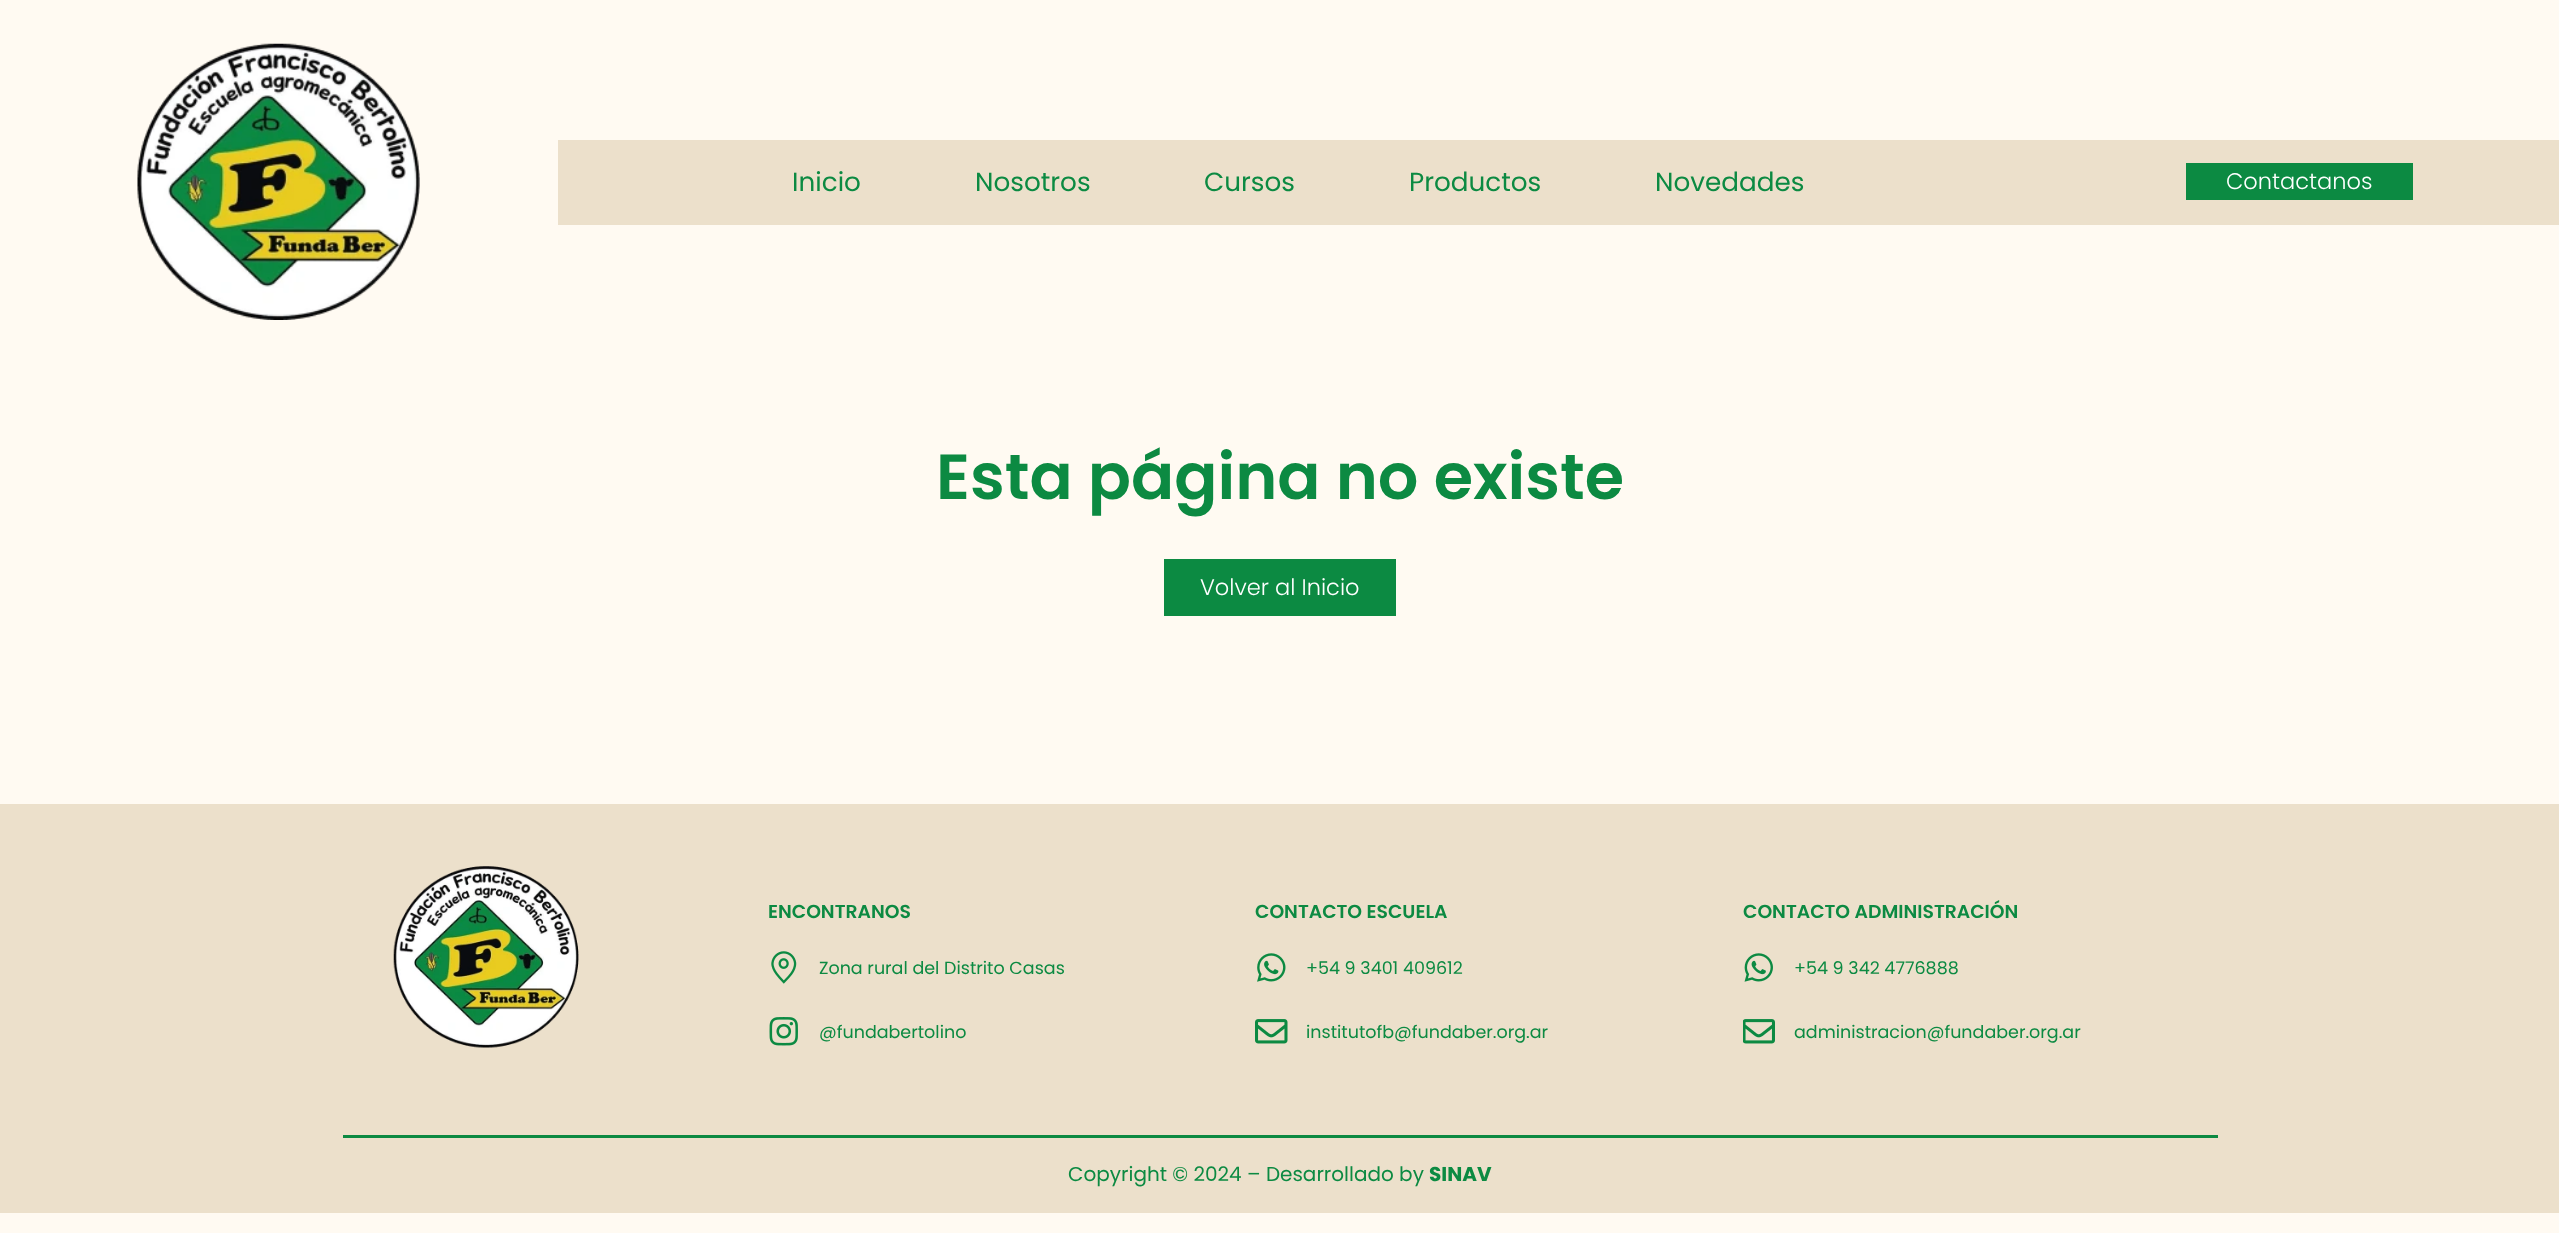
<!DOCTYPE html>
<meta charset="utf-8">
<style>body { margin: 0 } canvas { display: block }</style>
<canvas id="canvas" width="2559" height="1233"></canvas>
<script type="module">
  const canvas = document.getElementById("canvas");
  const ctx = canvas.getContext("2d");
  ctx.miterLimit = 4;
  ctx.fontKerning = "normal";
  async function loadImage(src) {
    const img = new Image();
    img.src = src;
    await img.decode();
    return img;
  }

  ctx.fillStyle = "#fffaf2";
  ctx.fillRect(0, 0, 2559, 1233);
  ctx.drawImage(await loadImage("img1.png"), 137, 43, 283, 277);
  ctx.fillStyle = "#ece0cb";
  ctx.fillRect(558, 140, 2001, 85);
  ctx.font = "26.25px Poppins";
  ctx.fillStyle = "#0c8a42";
  ctx.fillText("Inicio", 792, 191);
  ctx.fillText("Nosotros", 975, 191);
  ctx.fillText("Cursos", 1204, 191);
  ctx.fillText("Productos", 1409, 191);
  ctx.fillText("Novedades", 1655, 191);
  ctx.fillRect(2186, 163, 227, 37);
  ctx.font = "300 22.5px Poppins";
  ctx.fillStyle = "#ffffff";
  ctx.fillText("Contactanos", 2226, 189);
  ctx.font = "600 63.75px Poppins";
  ctx.fillStyle = "#0c8a42";
  ctx.fillText("Esta página no existe", 936, 499);
  ctx.fillRect(1164, 559, 232, 57);
  ctx.font = "300 22.5px Poppins";
  ctx.fillStyle = "#ffffff";
  ctx.fillText("Volver al Inicio", 1200, 595);
  ctx.fillStyle = "#ece0cb";
  ctx.fillRect(0, 804, 2559, 409);
  ctx.drawImage(await loadImage("img2.png"), 393, 866, 186, 182);
  ctx.font = "600 18.75px Poppins";
  ctx.fillStyle = "#0c8a42";
  ctx.fillText("ENCONTRANOS", 768, 918);
  ctx.drawImage(await loadImage("img3.png"), 771, 951, 26, 33);
  ctx.font = "17.5px Poppins";
  ctx.fillText("Zona rural del Distrito Casas", 819, 974);
  ctx.drawImage(await loadImage("img4.png"), 769, 1017, 29, 29);
  ctx.fillText("@fundabertolino", 819, 1038);
  ctx.font = "600 18.75px Poppins";
  ctx.fillText("CONTACTO ESCUELA", 1255, 918);
  ctx.drawImage(await loadImage("img5.png"), 1257, 953, 29, 29);
  ctx.font = "17.5px Poppins";
  ctx.fillText("+54 9 3401 409612", 1306, 974);
  ctx.drawImage(await loadImage("img6.png"), 1255, 1019, 33, 25);
  ctx.fillText("institutofb@fundaber.org.ar", 1306, 1038);
  ctx.font = "600 18.75px Poppins";
  ctx.fillText("CONTACTO ADMINISTRACIÓN", 1743, 918);
  ctx.drawImage(await loadImage("img7.png"), 1744, 953, 29, 29);
  ctx.font = "17.5px Poppins";
  ctx.fillText("+54 9 342 4776888", 1794, 974);
  ctx.drawImage(await loadImage("img8.png"), 1743, 1019, 32, 25);
  ctx.fillText("administracion@fundaber.org.ar", 1794, 1038);
  ctx.fillRect(343, 1135, 1875, 3);
  ctx.font = "20px Poppins";
  ctx.fillText("Copyright © 2024 – Desarrollado by", 1068, 1181);
  ctx.font = "bold 20px Poppins";
  ctx.fillText("SINAV", 1429, 1181);
</script>
